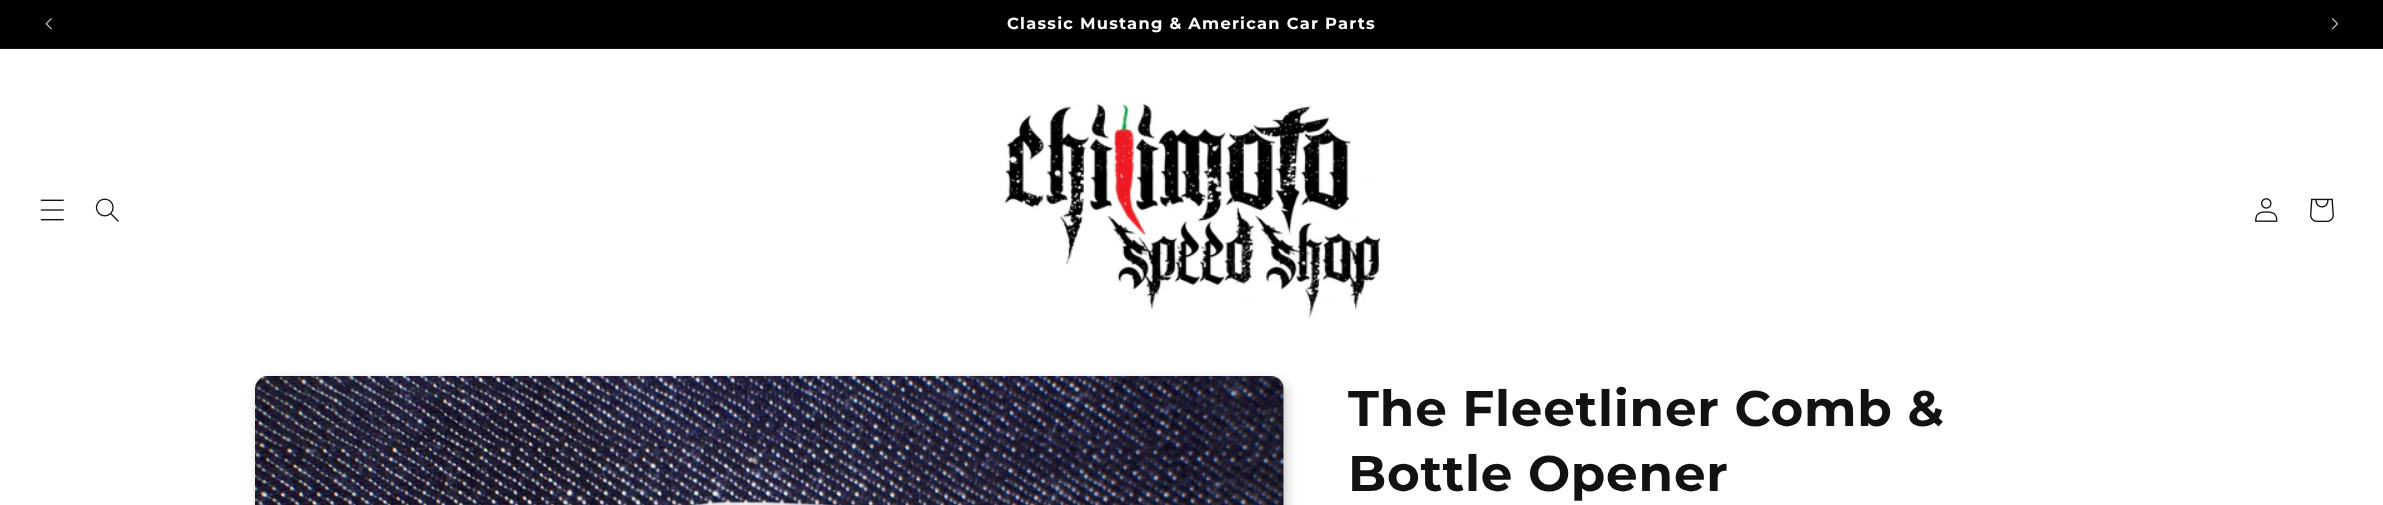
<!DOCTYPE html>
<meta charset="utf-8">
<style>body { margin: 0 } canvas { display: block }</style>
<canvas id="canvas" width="2383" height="505"></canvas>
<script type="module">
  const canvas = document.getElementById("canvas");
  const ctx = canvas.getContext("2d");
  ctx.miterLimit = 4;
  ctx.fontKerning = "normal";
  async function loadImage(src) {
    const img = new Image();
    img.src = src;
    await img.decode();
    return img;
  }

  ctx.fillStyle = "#ffffff";
  ctx.fillRect(0, 0, 2383, 505);
  ctx.fillStyle = "#000000";
  ctx.fillRect(0, 0, 2383, 48);
  ctx.fillStyle = "#141414";
  ctx.fillRect(0, 48, 2383, 1);
  ctx.drawImage(await loadImage("img1.png"), 45, 18, 7, 12);
  ctx.letterSpacing = "1.25px";
  ctx.font = "bold 16.25px Montserrat";
  ctx.fillStyle = "#ffffff";
  ctx.fillText("Classic Mustang & American Car Parts", 1007, 29);
  ctx.drawImage(await loadImage("img2.png"), 2331, 18, 7, 12);
  ctx.drawImage(await loadImage("img3.png"), 40, 199, 24, 22);
  ctx.drawImage(await loadImage("img4.png"), 95, 198, 24, 24);
  ctx.drawImage(await loadImage("img5.png"), 1004, 103, 376, 215);
  ctx.drawImage(await loadImage("img6.png"), 2255, 198, 23, 24);
  ctx.drawImage(await loadImage("img7.png"), 2310, 198, 24, 24);
  ctx.fillStyle = "rgba(18, 18, 18, 0.25)";
  ctx.filter = "blur(6px)";
  ctx.beginPath();
  ctx.roundRect(258, 381, 1028, 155, 13);
  ctx.fill();
  ctx.filter = "none";
  ctx.fillStyle = "#ffffff";
  ctx.beginPath();
  ctx.roundRect(255, 376, 1029, 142, 13);
  ctx.fill();
  ctx.drawImage(await loadImage("img8.png"), 255, 376, 1029, 129);
  ctx.letterSpacing = "0.75px";
  ctx.font = "bold 50px Montserrat";
  ctx.fillStyle = "#121212";
  ctx.fillText("The Fleetliner Comb &", 1348, 426);
  ctx.fillText("Bottle Opener", 1348, 491);
</script>
